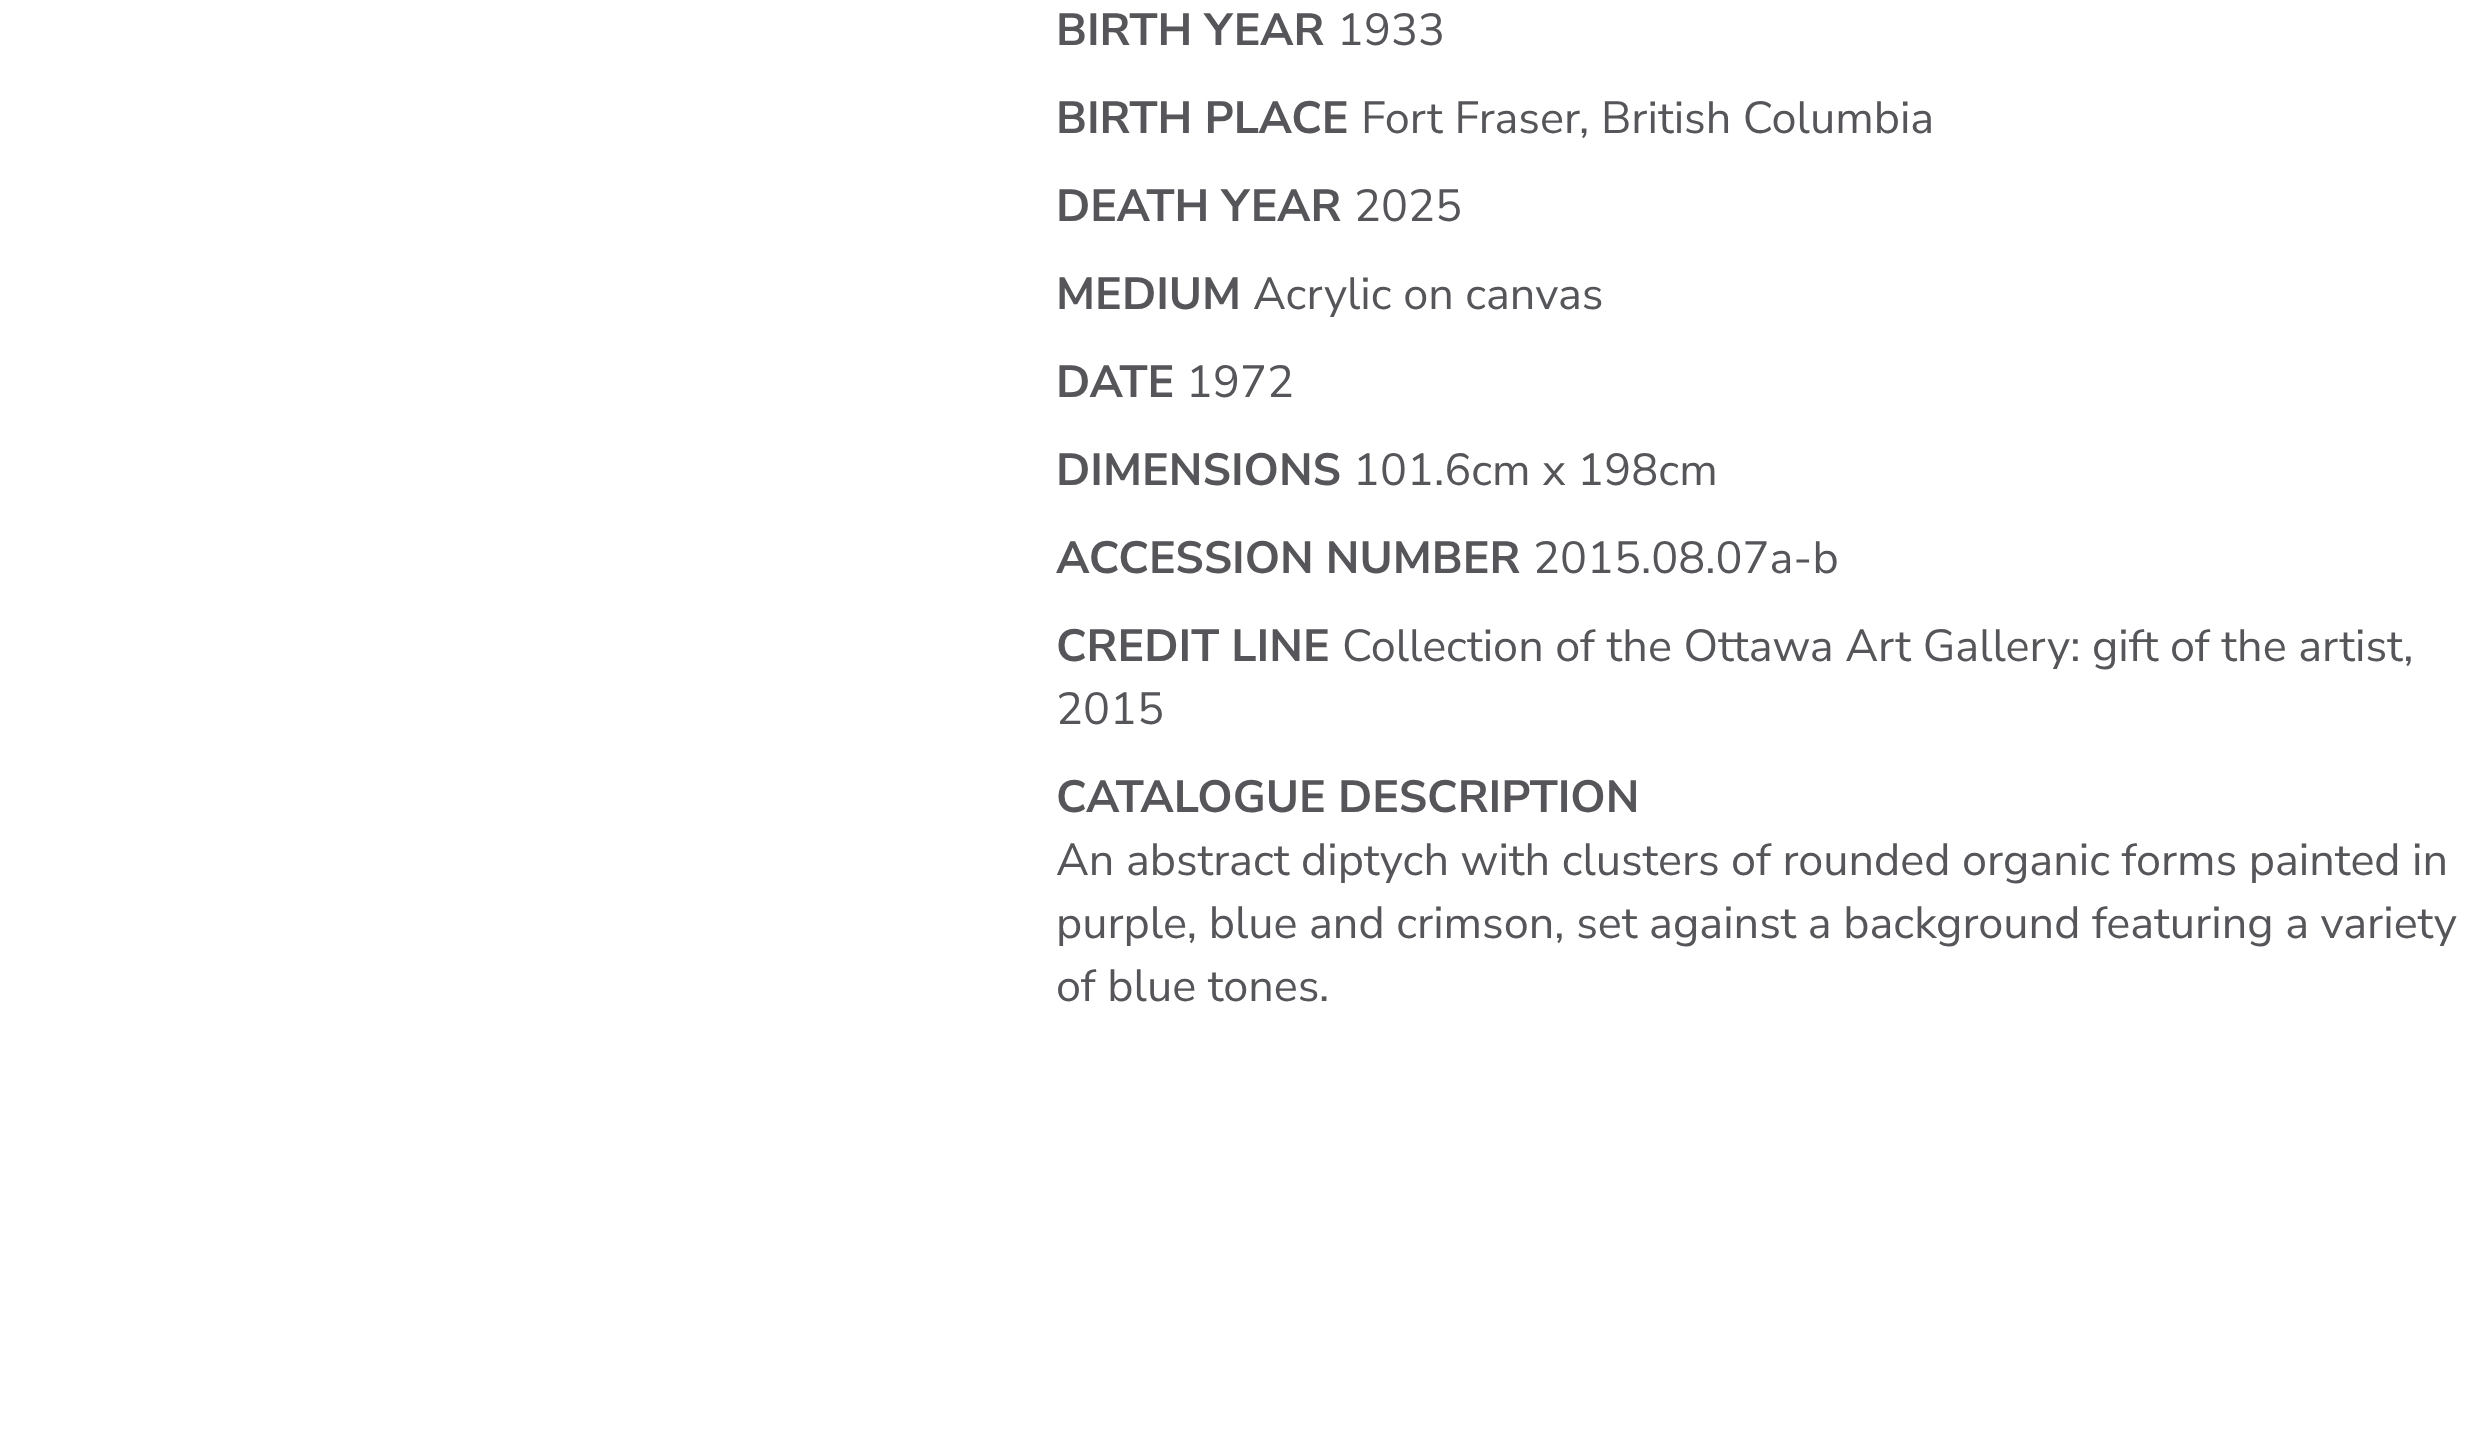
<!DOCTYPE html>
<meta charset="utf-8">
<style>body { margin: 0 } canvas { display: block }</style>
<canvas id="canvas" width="2485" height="1433"></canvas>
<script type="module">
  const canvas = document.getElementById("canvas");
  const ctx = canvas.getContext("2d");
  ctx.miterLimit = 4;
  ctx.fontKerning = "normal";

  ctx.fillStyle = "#ffffff";
  ctx.fillRect(0, 0, 2485, 1433);
  ctx.font = "bold 45px Nunito Sans";
  ctx.fillStyle = "#56565a";
  ctx.fillText("BIRTH YEAR", 1056, 45);
  ctx.font = "45px Nunito Sans";
  ctx.fillText("1933", 1337, 45);
  ctx.font = "bold 45px Nunito Sans";
  ctx.fillText("BIRTH PLACE", 1056, 133);
  ctx.font = "45px Nunito Sans";
  ctx.fillText("Fort Fraser, British Columbia", 1361, 133);
  ctx.font = "bold 45px Nunito Sans";
  ctx.fillText("DEATH YEAR", 1056, 221);
  ctx.font = "45px Nunito Sans";
  ctx.fillText("2025", 1354, 221);
  ctx.font = "bold 45px Nunito Sans";
  ctx.fillText("MEDIUM", 1056, 309);
  ctx.font = "45px Nunito Sans";
  ctx.fillText("Acrylic on canvas", 1253, 309);
  ctx.font = "bold 45px Nunito Sans";
  ctx.fillText("DATE", 1056, 397);
  ctx.font = "45px Nunito Sans";
  ctx.fillText("1972", 1186, 397);
  ctx.font = "bold 45px Nunito Sans";
  ctx.fillText("DIMENSIONS", 1056, 485);
  ctx.font = "45px Nunito Sans";
  ctx.fillText("101.6cm x 198cm", 1353, 485);
  ctx.font = "bold 45px Nunito Sans";
  ctx.fillText("ACCESSION NUMBER", 1056, 573);
  ctx.font = "45px Nunito Sans";
  ctx.fillText("2015.08.07a-b", 1533, 573);
  ctx.font = "bold 45px Nunito Sans";
  ctx.fillText("CREDIT LINE", 1056, 661);
  ctx.font = "45px Nunito Sans";
  ctx.fillText("Collection of the Ottawa Art Gallery: gift of the artist,", 1342, 661);
  ctx.fillText("2015", 1056, 724);
  ctx.font = "bold 45px Nunito Sans";
  ctx.fillText("CATALOGUE DESCRIPTION", 1056, 812);
  ctx.font = "45px Nunito Sans";
  ctx.fillText("An abstract diptych with clusters of rounded organic forms painted in", 1056, 875);
  ctx.fillText("purple, blue and crimson, set against a background featuring a variety", 1056, 938);
  ctx.fillText("of blue tones.", 1056, 1001);
</script>
